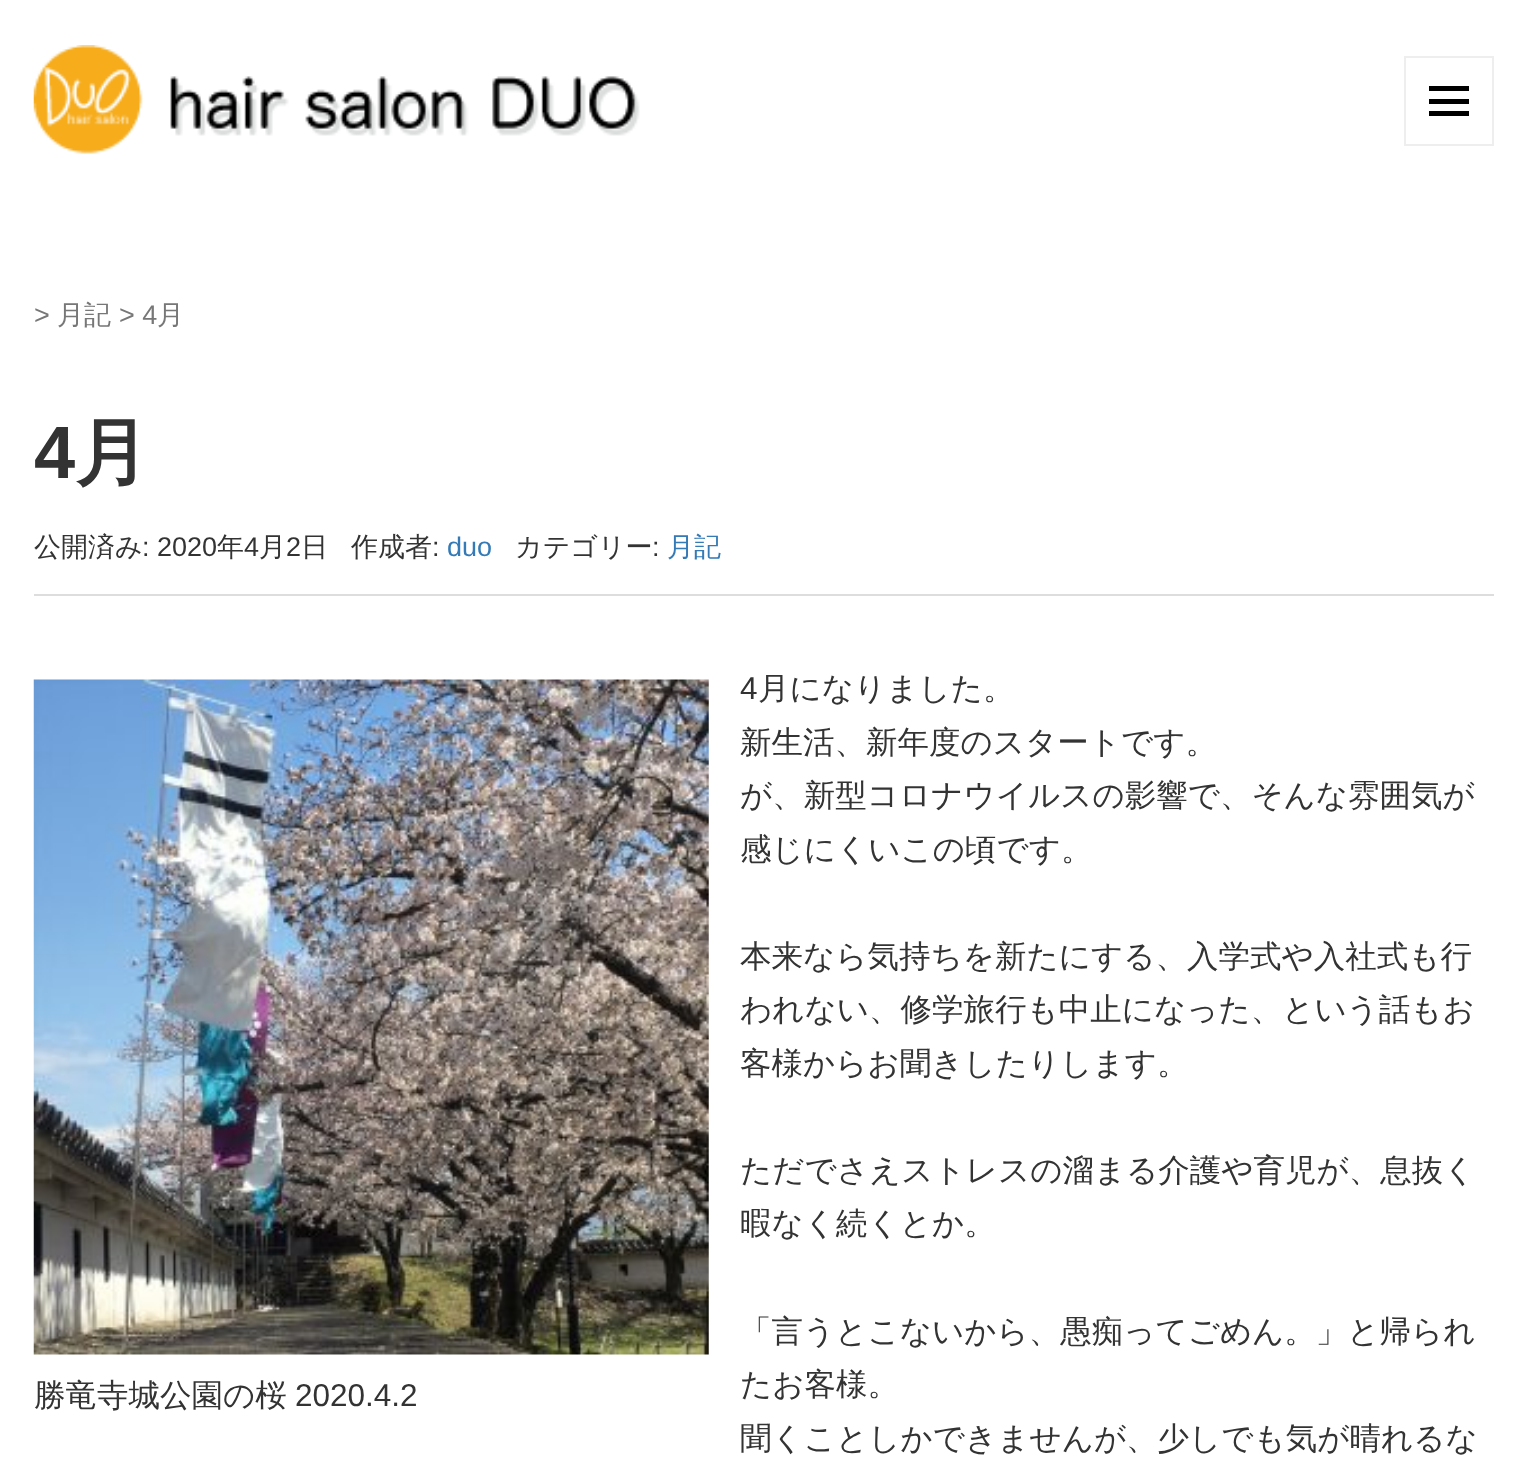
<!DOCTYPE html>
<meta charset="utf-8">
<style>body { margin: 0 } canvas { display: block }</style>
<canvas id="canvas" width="1527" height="1478"></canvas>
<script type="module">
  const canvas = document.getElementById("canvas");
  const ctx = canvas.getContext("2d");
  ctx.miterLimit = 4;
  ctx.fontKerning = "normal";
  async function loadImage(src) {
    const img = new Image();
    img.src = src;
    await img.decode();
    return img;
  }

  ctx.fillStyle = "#ffffff";
  ctx.fillRect(0, 0, 1527, 1478);
  ctx.drawImage(await loadImage("img1.png"), 33, 45, 607, 109);
  ctx.strokeStyle = "#eeeeee";
  ctx.lineWidth = 2;
  ctx.strokeRect(1405, 57, 88, 88);
  ctx.fillStyle = "#000000";
  ctx.beginPath();
  ctx.moveTo(1429, 116);
  ctx.lineTo(1429, 111);
  ctx.lineTo(1469, 111);
  ctx.lineTo(1469, 116);
  ctx.closePath();
  ctx.moveTo(1429, 86);
  ctx.lineTo(1469, 86);
  ctx.lineTo(1469, 91);
  ctx.lineTo(1429, 91);
  ctx.closePath();
  ctx.moveTo(1429, 104);
  ctx.lineTo(1429, 99);
  ctx.lineTo(1469, 99);
  ctx.lineTo(1469, 104);
  ctx.closePath();
  ctx.fill();
  ctx.font = "27px Liberation Sans";
  ctx.fillStyle = "#777777";
  ctx.fillText(">", 34, 324);
  ctx.font = "500 27px WenQuanYi Zen Hei";
  ctx.fillText("月記", 57, 324);
  ctx.font = "27px Liberation Sans";
  ctx.fillText("> 4", 119, 324);
  ctx.font = "500 27px WenQuanYi Zen Hei";
  ctx.fillText("月", 157, 324);
  ctx.font = "bold 74px Liberation Sans";
  ctx.fillStyle = "#333333";
  ctx.fillText("4", 34, 478);
  ctx.font = "bold 74px WenQuanYi Zen Hei";
  ctx.fillText("月", 75, 478);
  ctx.fillStyle = "#dddddd";
  ctx.fillRect(34, 594, 1460, 2);
  ctx.font = "500 27px WenQuanYi Zen Hei";
  ctx.fillStyle = "#333333";
  ctx.fillText("公開済み", 34, 556);
  ctx.font = "27px Liberation Sans";
  ctx.fillText(": 2020", 142, 556);
  ctx.font = "500 27px WenQuanYi Zen Hei";
  ctx.fillText("年", 217, 556);
  ctx.font = "27px Liberation Sans";
  ctx.fillText("4", 244, 556);
  ctx.font = "500 27px WenQuanYi Zen Hei";
  ctx.fillText("月", 259, 556);
  ctx.font = "27px Liberation Sans";
  ctx.fillText("2", 286, 556);
  ctx.font = "500 27px WenQuanYi Zen Hei";
  ctx.fillText("日", 301, 556);
  ctx.fillText("作成者", 351, 556);
  ctx.font = "27px Liberation Sans";
  ctx.fillText(":", 432, 556);
  ctx.fillStyle = "#337ab7";
  ctx.fillText("duo", 447, 556);
  ctx.font = "500 27px WenQuanYi Zen Hei";
  ctx.fillStyle = "#333333";
  ctx.fillText("カテゴリー", 515, 556);
  ctx.font = "27px Liberation Sans";
  ctx.fillText(":", 652, 556);
  ctx.font = "500 27px WenQuanYi Zen Hei";
  ctx.fillStyle = "#337ab7";
  ctx.fillText("月記", 667, 556);
  ctx.drawImage(await loadImage("img2.png"), 33, 679, 676, 676);
  ctx.font = "500 31.5px WenQuanYi Zen Hei";
  ctx.fillStyle = "#333333";
  ctx.fillText("勝竜寺城公園の桜", 34, 1406);
  ctx.font = "31.5px Liberation Sans";
  ctx.fillText("2020.4.2", 295, 1406);
  ctx.fillText("4", 740, 699);
  ctx.font = "500 31.5px WenQuanYi Zen Hei";
  ctx.fillText("月になりました。", 758, 699);
  ctx.fillText("新生活、新年度のスタートです。", 740, 753);
  ctx.fillText("が、新型コロナウイルスの影響で、そんな雰囲気が", 740, 806);
  ctx.fillText("感じにくいこの頃です。", 740, 860);
  ctx.fillText("本来なら気持ちを新たにする、入学式や入社式も行", 740, 967);
  ctx.fillText("われない、修学旅行も中止になった、という話もお", 740, 1020);
  ctx.fillText("客様からお聞きしたりします。", 740, 1074);
  ctx.fillText("ただでさえストレスの溜まる介護や育児が、息抜く", 740, 1181);
  ctx.fillText("暇なく続くとか。", 740, 1234);
  ctx.fillText("「言うとこないから、愚痴ってごめん。」と帰られ", 740, 1342);
  ctx.fillText("たお客様。", 740, 1395);
  ctx.fillText("聞くことしかできませんが、少しでも気が晴れるな", 740, 1449);
</script>
